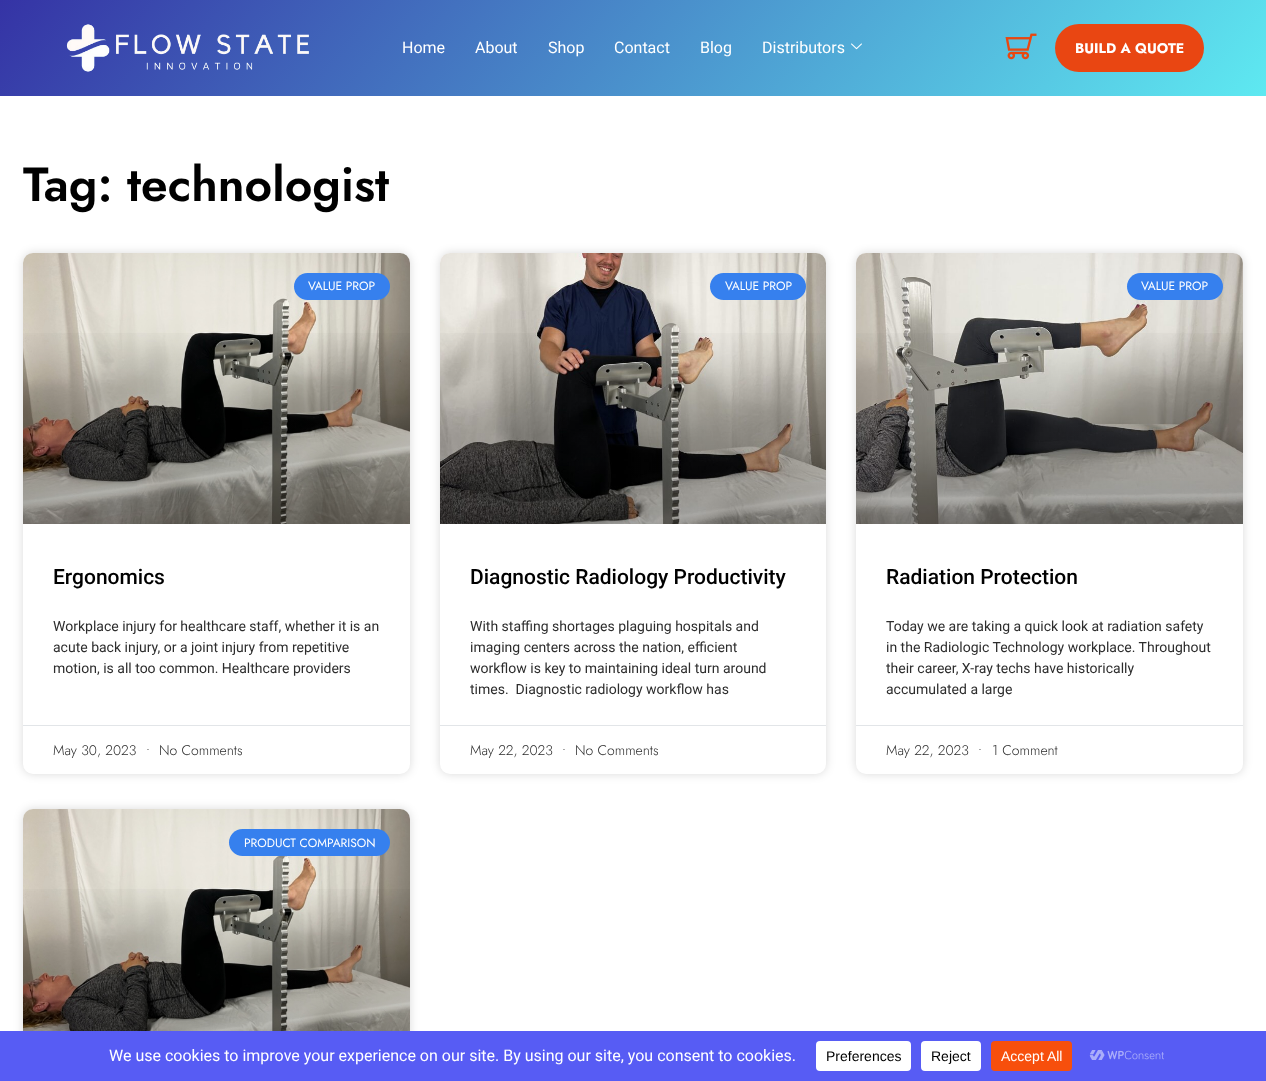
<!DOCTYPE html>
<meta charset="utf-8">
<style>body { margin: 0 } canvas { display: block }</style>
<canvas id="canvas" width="1266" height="1081"></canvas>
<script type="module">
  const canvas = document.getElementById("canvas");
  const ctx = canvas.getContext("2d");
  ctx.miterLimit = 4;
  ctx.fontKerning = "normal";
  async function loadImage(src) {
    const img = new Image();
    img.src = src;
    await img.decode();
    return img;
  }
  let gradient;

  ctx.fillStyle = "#ffffff";
  ctx.fillRect(0, 0, 1266, 1081);
  gradient = ctx.createLinearGradient(238, -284, 1028, 380);
  gradient.addColorStop(0, "#3533a5");
  gradient.addColorStop(1, "#5ee9f1");
  ctx.fillStyle = gradient;
  ctx.fillRect(0, 0, 1266, 96);
  ctx.drawImage(await loadImage("img1.png"), 66, 24, 243, 48);
  ctx.font = "16px Roboto";
  ctx.fillStyle = "#ffffff";
  ctx.fillText("Home", 402, 53);
  ctx.fillText("About", 475, 53);
  ctx.fillText("Shop", 548, 53);
  ctx.fillText("Contact", 614, 53);
  ctx.fillText("Blog", 700, 53);
  ctx.fillText("Distributors", 762, 53);
  ctx.drawImage(await loadImage("img2.png"), 851, 43, 11, 7);
  ctx.drawImage(await loadImage("img3.png"), 1005, 33, 32, 27);
  ctx.fillStyle = "#e94612";
  ctx.beginPath();
  ctx.roundRect(1055, 24, 149, 48, 24);
  ctx.fill();
  ctx.font = "bold 14px Jost";
  ctx.fillStyle = "#ffffff";
  ctx.fillText("BUILD A QUOTE", 1075, 53);
  ctx.font = "600 48px Jost";
  ctx.fillStyle = "#000000";
  ctx.fillText("Tag: technologist", 23, 201);
  ctx.fillStyle = "rgba(0, 0, 0, 0.15)";
  ctx.filter = "blur(5px)";
  ctx.beginPath();
  ctx.roundRect(23, 253, 387, 521, 10);
  ctx.fill();
  ctx.filter = "none";
  ctx.fillStyle = "#ffffff";
  ctx.beginPath();
  ctx.roundRect(23, 253, 387, 521, 10);
  ctx.fill();
  ctx.drawImage(await loadImage("img4.png"), 23, 253, 387, 271);
  gradient = ctx.createLinearGradient(217, 524, 217, 253);
  gradient.addColorStop(0, "rgba(0, 0, 0, 0.35)");
  gradient.addColorStop(0.75, "rgba(0, 0, 0, 0)");
  ctx.fillStyle = gradient;
  ctx.fillRect(23, 333, 387, 191);
  ctx.fillStyle = "#3680ee";
  ctx.beginPath();
  ctx.roundRect(294, 273, 96, 27, 13.5);
  ctx.fill();
  ctx.font = "12px Jost";
  ctx.fillStyle = "#ffffff";
  ctx.fillText("VALUE PROP", 308, 290);
  ctx.font = "500 21px Roboto";
  ctx.fillStyle = "#000000";
  ctx.fillText("Ergonomics", 53, 584);
  ctx.font = "14px Roboto";
  ctx.fillStyle = "#2d2d2d";
  ctx.fillText("Workplace injury for healthcare staff, whether it is an", 53, 631);
  ctx.fillText("acute back injury, or a joint injury from repetitive", 53, 652);
  ctx.fillText("motion, is all too common. Healthcare providers", 53, 673);
  ctx.fillStyle = "#e2e5e8";
  ctx.fillRect(23, 725, 387, 1);
  ctx.font = "300 14px Jost";
  ctx.fillStyle = "#2d2d2d";
  ctx.fillText("May 30, 2023", 53, 755);
  ctx.fillText("•", 146, 755);
  ctx.fillText("No Comments", 159, 755);
  ctx.fillStyle = "rgba(0, 0, 0, 0.15)";
  ctx.filter = "blur(5px)";
  ctx.beginPath();
  ctx.roundRect(440, 253, 386, 521, 10);
  ctx.fill();
  ctx.filter = "none";
  ctx.fillStyle = "#ffffff";
  ctx.beginPath();
  ctx.roundRect(440, 253, 386, 521, 10);
  ctx.fill();
  ctx.drawImage(await loadImage("img5.png"), 440, 253, 386, 271);
  gradient = ctx.createLinearGradient(633, 524, 633, 253);
  gradient.addColorStop(0, "rgba(0, 0, 0, 0.35)");
  gradient.addColorStop(0.75, "rgba(0, 0, 0, 0)");
  ctx.fillStyle = gradient;
  ctx.fillRect(440, 333, 386, 191);
  ctx.fillStyle = "#3680ee";
  ctx.beginPath();
  ctx.roundRect(710, 273, 96, 27, 13.5);
  ctx.fill();
  ctx.font = "12px Jost";
  ctx.fillStyle = "#ffffff";
  ctx.fillText("VALUE PROP", 725, 290);
  ctx.font = "500 21px Roboto";
  ctx.fillStyle = "#000000";
  ctx.fillText("Diagnostic Radiology Productivity", 470, 584);
  ctx.font = "14px Roboto";
  ctx.fillStyle = "#2d2d2d";
  ctx.fillText("With staffing shortages plaguing hospitals and", 470, 631);
  ctx.fillText("imaging centers across the nation, efficient", 470, 652);
  ctx.fillText("workflow is key to maintaining ideal turn around", 470, 673);
  ctx.fillText("times.  Diagnostic radiology workflow has", 470, 694);
  ctx.fillStyle = "#e2e5e8";
  ctx.fillRect(440, 725, 386, 1);
  ctx.font = "300 14px Jost";
  ctx.fillStyle = "#2d2d2d";
  ctx.fillText("May 22, 2023", 470, 755);
  ctx.fillText("•", 562, 755);
  ctx.fillText("No Comments", 575, 755);
  ctx.fillStyle = "rgba(0, 0, 0, 0.15)";
  ctx.filter = "blur(5px)";
  ctx.beginPath();
  ctx.roundRect(856, 253, 387, 521, 10);
  ctx.fill();
  ctx.filter = "none";
  ctx.fillStyle = "#ffffff";
  ctx.beginPath();
  ctx.roundRect(856, 253, 387, 521, 10);
  ctx.fill();
  ctx.drawImage(await loadImage("img6.png"), 856, 253, 387, 271);
  gradient = ctx.createLinearGradient(1050, 524, 1050, 253);
  gradient.addColorStop(0, "rgba(0, 0, 0, 0.35)");
  gradient.addColorStop(0.75, "rgba(0, 0, 0, 0)");
  ctx.fillStyle = gradient;
  ctx.fillRect(856, 333, 387, 191);
  ctx.fillStyle = "#3680ee";
  ctx.beginPath();
  ctx.roundRect(1127, 273, 96, 27, 13.5);
  ctx.fill();
  ctx.font = "12px Jost";
  ctx.fillStyle = "#ffffff";
  ctx.fillText("VALUE PROP", 1141, 290);
  ctx.font = "500 21px Roboto";
  ctx.fillStyle = "#000000";
  ctx.fillText("Radiation Protection", 886, 584);
  ctx.font = "14px Roboto";
  ctx.fillStyle = "#2d2d2d";
  ctx.fillText("Today we are taking a quick look at radiation safety", 886, 631);
  ctx.fillText("in the Radiologic Technology workplace. Throughout", 886, 652);
  ctx.fillText("their career, X-ray techs have historically", 886, 673);
  ctx.fillText("accumulated a large", 886, 694);
  ctx.fillStyle = "#e2e5e8";
  ctx.fillRect(856, 725, 387, 1);
  ctx.font = "300 14px Jost";
  ctx.fillStyle = "#2d2d2d";
  ctx.fillText("May 22, 2023", 886, 755);
  ctx.fillText("•", 978, 755);
  ctx.fillText("1 Comment", 992, 755);
  ctx.fillStyle = "rgba(0, 0, 0, 0.15)";
  ctx.filter = "blur(5px)";
  ctx.beginPath();
  ctx.roundRect(23, 809, 387, 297, 10);
  ctx.fill();
  ctx.filter = "none";
  ctx.fillStyle = "#ffffff";
  ctx.beginPath();
  ctx.roundRect(23, 809, 387, 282, 10);
  ctx.fill();
  ctx.drawImage(await loadImage("img7.png"), 23, 809, 387, 222);
  gradient = ctx.createLinearGradient(217, 1080, 217, 809);
  gradient.addColorStop(0, "rgba(0, 0, 0, 0.35)");
  gradient.addColorStop(0.75, "rgba(0, 0, 0, 0)");
  ctx.fillStyle = gradient;
  ctx.fillRect(23, 889, 387, 142);
  ctx.fillStyle = "#3680ee";
  ctx.beginPath();
  ctx.roundRect(229, 829, 161, 27, 13.5);
  ctx.fill();
  ctx.font = "12px Jost";
  ctx.fillStyle = "#ffffff";
  ctx.fillText("PRODUCT COMPARISON", 244, 847);
  ctx.fillStyle = "#575cf4";
  ctx.fillRect(0, 1031, 1266, 50);
  ctx.font = "16px Roboto";
  ctx.fillStyle = "#ffffff";
  ctx.fillText("We use cookies to improve your experience on our site. By using our site, you consent to cookies.", 109, 1061);
  ctx.beginPath();
  ctx.roundRect(816, 1041, 95, 30, 4);
  ctx.fill();
  ctx.font = "14px Liberation Sans";
  ctx.fillStyle = "#000000";
  ctx.fillText("Preferences", 826, 1061);
  ctx.fillStyle = "#ffffff";
  ctx.beginPath();
  ctx.roundRect(921, 1041, 60, 30, 4);
  ctx.fill();
  ctx.fillStyle = "#000000";
  ctx.fillText("Reject", 931, 1061);
  ctx.fillStyle = "#f74f0c";
  ctx.beginPath();
  ctx.roundRect(991, 1041, 81, 30, 4);
  ctx.fill();
  ctx.fillStyle = "#ffffff";
  ctx.fillText("Accept All", 1001, 1061);
  ctx.drawImage(await loadImage("img8.png"), 1089, 1050, 75, 10);
</script>
